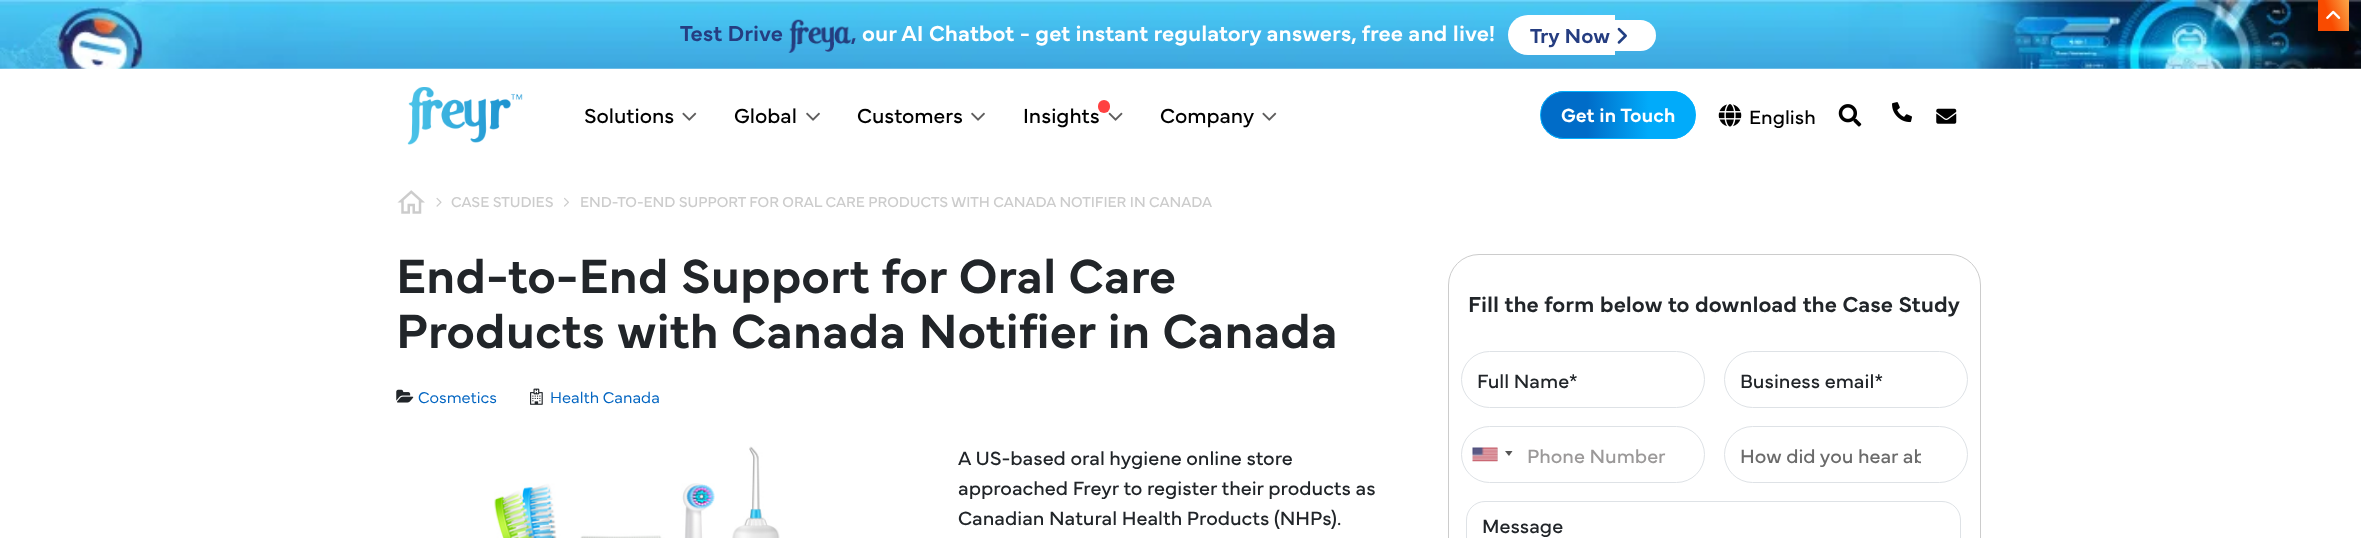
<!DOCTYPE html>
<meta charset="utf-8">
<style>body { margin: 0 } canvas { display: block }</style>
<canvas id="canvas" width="2361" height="538"></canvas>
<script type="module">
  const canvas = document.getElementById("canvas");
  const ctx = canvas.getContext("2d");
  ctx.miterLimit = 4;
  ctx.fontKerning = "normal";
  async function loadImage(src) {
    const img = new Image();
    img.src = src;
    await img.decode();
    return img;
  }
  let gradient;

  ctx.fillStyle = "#ffffff";
  ctx.fillRect(0, 0, 2361, 538);
  ctx.drawImage(await loadImage("img2.png"), 0, 0, 2361, 69);
  gradient = ctx.createLinearGradient(2314, 22, 2352, 9);
  gradient.addColorStop(0.4, "#f94b00");
  gradient.addColorStop(1, "#faa84a");
  ctx.fillStyle = gradient;
  ctx.fillRect(2318, 0, 31, 31);
  ctx.drawImage(await loadImage("img1.png"), 2326, 10, 15, 9);
  ctx.font = "600 22.5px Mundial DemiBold";
  ctx.fillStyle = "#253d81";
  ctx.fillText("Test Drive", 680, 41);
  ctx.drawImage(await loadImage("img3.png"), 788, 19, 64, 34);
  ctx.fillText(",", 851, 41);
  ctx.fillStyle = "#ffffff";
  ctx.fillText("our AI Chatbot - get instant regulatory answers, free and live!", 862, 41);
  ctx.beginPath();
  ctx.roundRect(1508, 15, 107, 40, [20, 0, 0, 20]);
  ctx.fill();
  ctx.beginPath();
  ctx.roundRect(1615, 20, 41, 31, [0, 15.5, 15.5, 0]);
  ctx.fill();
  ctx.font = "600 21.25px Mundial DemiBold";
  ctx.fillStyle = "#253d81";
  ctx.fillText("Try Now", 1530, 43);
  ctx.drawImage(await loadImage("img4.png"), 1617, 27, 10, 17);
  ctx.drawImage(await loadImage("img5.png"), 407, 87, 116, 58);
  ctx.font = "21.25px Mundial";
  ctx.fillStyle = "#000000";
  ctx.fillText("Solutions", 584, 123);
  ctx.drawImage(await loadImage("img6.png"), 682, 112, 15, 9);
  ctx.fillText("Global", 734, 123);
  ctx.drawImage(await loadImage("img7.png"), 806, 112, 14, 9);
  ctx.fillText("Customers", 857, 123);
  ctx.drawImage(await loadImage("img7.png"), 971, 112, 14, 9);
  ctx.fillText("Insights", 1023, 123);
  ctx.fillStyle = "#ff4141";
  ctx.beginPath();
  ctx.roundRect(1098, 100, 12, 13, 6);
  ctx.fill();
  ctx.drawImage(await loadImage("img8.png"), 1108, 112, 15, 9);
  ctx.fillStyle = "#000000";
  ctx.fillText("Company", 1160, 123);
  ctx.drawImage(await loadImage("img6.png"), 1262, 112, 15, 9);
  ctx.save();
  ctx.beginPath();
  ctx.roundRect(1540, 91, 156, 48, 24);
  ctx.clip();
  gradient = ctx.createLinearGradient(1541, 115, 1695, 115);
  gradient.addColorStop(0.3, "#006cc8");
  gradient.addColorStop(0.7, "#01abfa");
  ctx.fillStyle = gradient;
  ctx.fillRect(1541, 91, 154, 48);
  ctx.restore();
  ctx.beginPath();
  ctx.roundRect(1540.5, 91.5, 155, 47, 23.5);
  ctx.strokeStyle = "#01b1ff";
  ctx.stroke();
  ctx.font = "600 20px Mundial DemiBold";
  ctx.fillStyle = "#ffffff";
  ctx.fillText("Get in Touch", 1561, 122);
  ctx.drawImage(await loadImage("img9.png"), 1718, 104, 24, 23);
  ctx.font = "20px Mundial";
  ctx.fillStyle = "#000000";
  ctx.fillText("English", 1749, 124);
  ctx.drawImage(await loadImage("img10.png"), 1838, 104, 24, 23);
  ctx.drawImage(await loadImage("img11.png"), 1892, 102, 20, 21);
  ctx.drawImage(await loadImage("img12.png"), 1936, 108, 21, 16);
  ctx.drawImage(await loadImage("img13.png"), 397, 190, 28, 24);
  ctx.drawImage(await loadImage("img14.png"), 436, 197, 6, 10);
  ctx.font = "15px Mundial";
  ctx.fillStyle = "#cccccc";
  ctx.fillText("CASE STUDIES", 451, 207);
  ctx.drawImage(await loadImage("img15.png"), 564, 197, 5, 10);
  ctx.fillText("END-TO-END SUPPORT FOR ORAL CARE PRODUCTS WITH CANADA NOTIFIER IN CANADA", 580, 207);
  ctx.font = "600 50px Mundial DemiBold";
  ctx.fillStyle = "#212529";
  ctx.fillText("End-to-End Support for Oral Care", 396, 293);
  ctx.fillText("Products with Canada Notifier in Canada", 396, 348);
  ctx.drawImage(await loadImage("img16.png"), 396, 389, 18, 14);
  ctx.font = "300 16.25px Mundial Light";
  ctx.fillStyle = "#0064c1";
  ctx.fillText("Cosmetics", 418, 403);
  ctx.drawImage(await loadImage("img17.png"), 530, 388, 13, 17);
  ctx.fillText("Health Canada", 550, 403);
  ctx.drawImage(await loadImage("img18.png"), 494, 446, 286, 92);
  ctx.font = "20px Mundial";
  ctx.fillStyle = "#212529";
  ctx.fillText("A US-based oral hygiene online store", 958, 465);
  ctx.fillText("approached Freyr to register their products as", 958, 495);
  ctx.fillText("Canadian Natural Health Products (NHPs).", 958, 525);
  ctx.beginPath();
  ctx.roundRect(1448.5, 254.5, 532, 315, 30.5);
  ctx.strokeStyle = "#cccccc";
  ctx.stroke();
  ctx.font = "600 22.5px Mundial DemiBold";
  ctx.fillText("Fill the form below to download the Case Study", 1468, 312);
  ctx.beginPath();
  ctx.roundRect(1461.5, 351.5, 243, 56, 28);
  ctx.strokeStyle = "#dee2e6";
  ctx.stroke();
  ctx.font = "20px Mundial";
  ctx.fillText("Full Name*", 1477, 388);
  ctx.beginPath();
  ctx.roundRect(1724.5, 351.5, 243, 56, 28);
  ctx.stroke();
  ctx.fillText("Business email*", 1740, 388);
  ctx.beginPath();
  ctx.roundRect(1461.5, 426.5, 243, 56, 28);
  ctx.stroke();
  ctx.fillStyle = "#888888";
  ctx.filter = "blur(0.5px)";
  ctx.beginPath();
  ctx.rect(1473, 448, 25, 13);
  ctx.fill();
  ctx.filter = "none";
  ctx.fillStyle = "#dbdbdb";
  ctx.fillRect(1497, 448, 1, 13);
  ctx.drawImage(await loadImage("img19.png"), 1472, 447, 26, 15);
  ctx.fillStyle = "#555555";
  ctx.beginPath();
  ctx.moveTo(1505, 451);
  ctx.lineTo(1512.5, 451);
  ctx.lineTo(1509, 456);
  ctx.closePath();
  ctx.fill();
  ctx.fillStyle = "#9b9999";
  ctx.fillText("Phone Number", 1527, 463);
  ctx.beginPath();
  ctx.roundRect(1724.5, 426.5, 243, 56, 28);
  ctx.stroke();
  ctx.save();
  ctx.beginPath();
  ctx.rect(1740, 439, 181, 30);
  ctx.clip();
  ctx.fillStyle = "#6b6b6b";
  ctx.fillText("How did you hear ab", 1740, 463);
  ctx.restore();
  ctx.beginPath();
  ctx.roundRect(1466.5, 501.5, 494, 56, 18.5);
  ctx.stroke();
  ctx.fillStyle = "#212529";
  ctx.fillText("Message", 1482, 533);
</script>
